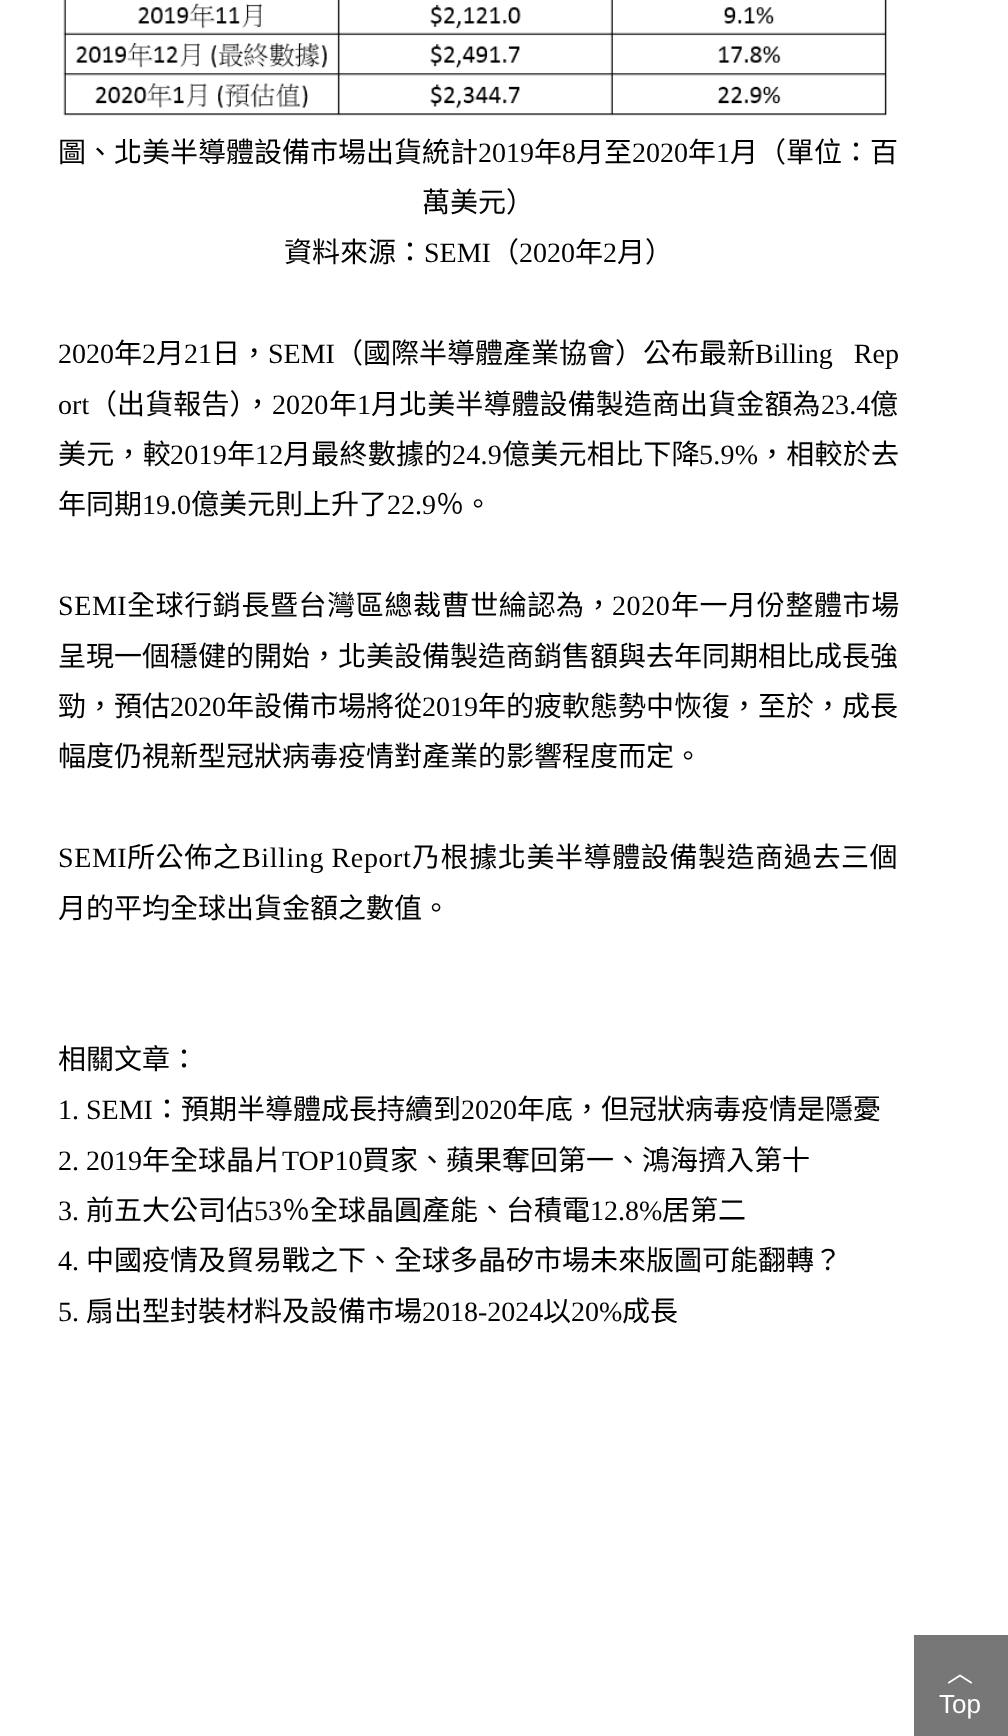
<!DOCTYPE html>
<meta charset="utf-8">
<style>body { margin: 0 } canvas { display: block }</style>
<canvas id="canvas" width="1008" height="1736"></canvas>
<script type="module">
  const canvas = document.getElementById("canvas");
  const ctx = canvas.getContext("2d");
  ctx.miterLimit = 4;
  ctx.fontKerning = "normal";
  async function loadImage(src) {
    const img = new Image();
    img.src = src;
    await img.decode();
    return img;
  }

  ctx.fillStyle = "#ffffff";
  ctx.fillRect(0, 0, 1008, 1736);
  ctx.drawImage(await loadImage("img1.png"), 63, 0, 824, 116);
  ctx.font = "28px Noto Sans CJK TC";
  ctx.fillStyle = "#000000";
  ctx.fillText("圖、北美半導體設備市場出貨統計", 58, 162);
  ctx.font = "28px Liberation Serif";
  ctx.fillText("2019", 478, 162);
  ctx.font = "28px Noto Sans CJK TC";
  ctx.fillText("年", 534, 162);
  ctx.font = "28px Liberation Serif";
  ctx.fillText("8", 562, 162);
  ctx.font = "28px Noto Sans CJK TC";
  ctx.fillText("月至", 576, 162);
  ctx.font = "28px Liberation Serif";
  ctx.fillText("2020", 632, 162);
  ctx.font = "28px Noto Sans CJK TC";
  ctx.fillText("年", 688, 162);
  ctx.font = "28px Liberation Serif";
  ctx.fillText("1", 716, 162);
  ctx.font = "28px Noto Sans CJK TC";
  ctx.fillText("月（單位：百", 730, 162);
  ctx.fillText("萬美元）", 422, 212);
  ctx.fillText("資料來源：", 284, 262);
  ctx.font = "28px Liberation Serif";
  ctx.fillText("SEMI", 424, 262);
  ctx.font = "28px Noto Sans CJK TC";
  ctx.fillText("（", 491, 262);
  ctx.font = "28px Liberation Serif";
  ctx.fillText("2020", 519, 262);
  ctx.font = "28px Noto Sans CJK TC";
  ctx.fillText("年", 575, 262);
  ctx.font = "28px Liberation Serif";
  ctx.fillText("2", 603, 262);
  ctx.font = "28px Noto Sans CJK TC";
  ctx.fillText("月）", 617, 262);
  ctx.font = "28px Liberation Serif";
  ctx.fillText("2020", 58, 363);
  ctx.font = "28px Noto Sans CJK TC";
  ctx.fillText("年", 114, 363);
  ctx.font = "28px Liberation Serif";
  ctx.fillText("2", 142, 363);
  ctx.font = "28px Noto Sans CJK TC";
  ctx.fillText("月", 156, 363);
  ctx.font = "28px Liberation Serif";
  ctx.fillText("21", 184, 363);
  ctx.font = "28px Noto Sans CJK TC";
  ctx.fillText("日，", 212, 363);
  ctx.font = "28px Liberation Serif";
  ctx.fillText("SEMI", 268, 363);
  ctx.font = "28px Noto Sans CJK TC";
  ctx.fillText("（國際半導體產業協會）公布最新", 335, 363);
  ctx.wordSpacing = "14px";
  ctx.font = "28px Liberation Serif";
  ctx.fillText("Billing Rep", 755, 363);
  ctx.letterSpacing = "0.1px";
  ctx.wordSpacing = "0px";
  ctx.fillText("ort", 58, 414);
  ctx.font = "28px Noto Sans CJK TC";
  ctx.fillText("（出貨報告），", 89, 414);
  ctx.font = "28px Liberation Serif";
  ctx.fillText("2020", 272, 414);
  ctx.font = "28px Noto Sans CJK TC";
  ctx.fillText("年", 329, 414);
  ctx.font = "28px Liberation Serif";
  ctx.fillText("1", 357, 414);
  ctx.font = "28px Noto Sans CJK TC";
  ctx.fillText("月北美半導體設備製造商出貨金額為", 371, 414);
  ctx.font = "28px Liberation Serif";
  ctx.fillText("23.4", 821, 414);
  ctx.font = "28px Noto Sans CJK TC";
  ctx.fillText("億", 870, 414);
  ctx.letterSpacing = "0.25px";
  ctx.fillText("美元，較", 58, 464);
  ctx.font = "28px Liberation Serif";
  ctx.fillText("2019", 170, 464);
  ctx.font = "28px Noto Sans CJK TC";
  ctx.fillText("年", 227, 464);
  ctx.font = "28px Liberation Serif";
  ctx.fillText("12", 255, 464);
  ctx.font = "28px Noto Sans CJK TC";
  ctx.fillText("月最終數據的", 283, 464);
  ctx.font = "28px Liberation Serif";
  ctx.fillText("24.9", 452, 464);
  ctx.font = "28px Noto Sans CJK TC";
  ctx.fillText("億美元相比下降", 502, 464);
  ctx.font = "28px Liberation Serif";
  ctx.fillText("5.9%", 699, 464);
  ctx.font = "28px Noto Sans CJK TC";
  ctx.fillText("，相較於去", 758, 464);
  ctx.letterSpacing = "0px";
  ctx.fillText("年同期", 58, 514);
  ctx.font = "28px Liberation Serif";
  ctx.fillText("19.0", 142, 514);
  ctx.font = "28px Noto Sans CJK TC";
  ctx.fillText("億美元則上升了", 191, 514);
  ctx.font = "28px Liberation Serif";
  ctx.fillText("22.9", 387, 514);
  ctx.font = "28px Noto Sans CJK TC";
  ctx.fillText("％。", 436, 514);
  ctx.letterSpacing = "0.6px";
  ctx.font = "28px Liberation Serif";
  ctx.fillText("SEMI", 58, 615);
  ctx.font = "28px Noto Sans CJK TC";
  ctx.fillText("全球行銷長暨台灣區總裁曹世綸認為，", 127, 615);
  ctx.font = "28px Liberation Serif";
  ctx.fillText("2020", 612, 615);
  ctx.font = "28px Noto Sans CJK TC";
  ctx.fillText("年一月份整體市場", 671, 615);
  ctx.letterSpacing = "0px";
  ctx.fillText("呈現一個穩健的開始，北美設備製造商銷售額與去年同期相比成長強", 58, 666);
  ctx.fillText("勁，預估", 58, 716);
  ctx.font = "28px Liberation Serif";
  ctx.fillText("2020", 170, 716);
  ctx.font = "28px Noto Sans CJK TC";
  ctx.fillText("年設備市場將從", 226, 716);
  ctx.font = "28px Liberation Serif";
  ctx.fillText("2019", 422, 716);
  ctx.font = "28px Noto Sans CJK TC";
  ctx.fillText("年的疲軟態勢中恢復，至於，成長", 478, 716);
  ctx.fillText("幅度仍視新型冠狀病毒疫情對產業的影響程度而定。", 58, 766);
  ctx.letterSpacing = "0.6px";
  ctx.font = "28px Liberation Serif";
  ctx.fillText("SEMI", 58, 867);
  ctx.font = "28px Noto Sans CJK TC";
  ctx.fillText("所公佈之", 127, 867);
  ctx.font = "28px Liberation Serif";
  ctx.fillText("Billing Report", 242, 867);
  ctx.font = "28px Noto Sans CJK TC";
  ctx.fillText("乃根據北美半導體設備製造商過去三個", 412, 867);
  ctx.letterSpacing = "0px";
  ctx.fillText("月的平均全球出貨金額之數值。", 58, 918);
  ctx.fillText("相關文章：", 58, 1069);
  ctx.font = "28px Liberation Serif";
  ctx.fillText("1. SEMI", 58, 1119);
  ctx.font = "28px Noto Sans CJK TC";
  ctx.fillText("：預期半導體成長持續到", 153, 1119);
  ctx.font = "28px Liberation Serif";
  ctx.fillText("2020", 461, 1119);
  ctx.font = "28px Noto Sans CJK TC";
  ctx.fillText("年底，但冠狀病毒疫情是隱憂", 517, 1119);
  ctx.font = "28px Liberation Serif";
  ctx.fillText("2. 2019", 58, 1170);
  ctx.font = "28px Noto Sans CJK TC";
  ctx.fillText("年全球晶片", 142, 1170);
  ctx.font = "28px Liberation Serif";
  ctx.fillText("TOP10", 282, 1170);
  ctx.font = "28px Noto Sans CJK TC";
  ctx.fillText("買家、蘋果奪回第一、鴻海擠入第十", 362, 1170);
  ctx.font = "28px Liberation Serif";
  ctx.fillText("3.", 58, 1220);
  ctx.font = "28px Noto Sans CJK TC";
  ctx.fillText("前五大公司佔", 86, 1220);
  ctx.font = "28px Liberation Serif";
  ctx.fillText("53", 254, 1220);
  ctx.font = "28px Noto Sans CJK TC";
  ctx.fillText("％全球晶圓產能、台積電", 282, 1220);
  ctx.font = "28px Liberation Serif";
  ctx.fillText("12.8%", 590, 1220);
  ctx.font = "28px Noto Sans CJK TC";
  ctx.fillText("居第二", 662, 1220);
  ctx.font = "28px Liberation Serif";
  ctx.fillText("4.", 58, 1270);
  ctx.font = "28px Noto Sans CJK TC";
  ctx.fillText("中國疫情及貿易戰之下、全球多晶矽市場未來版圖可能翻轉？", 86, 1270);
  ctx.font = "28px Liberation Serif";
  ctx.fillText("5.", 58, 1321);
  ctx.font = "28px Noto Sans CJK TC";
  ctx.fillText("扇出型封裝材料及設備市場", 86, 1321);
  ctx.font = "28px Liberation Serif";
  ctx.fillText("2018-2024", 422, 1321);
  ctx.font = "28px Noto Sans CJK TC";
  ctx.fillText("以", 543, 1321);
  ctx.font = "28px Liberation Serif";
  ctx.fillText("20%", 571, 1321);
  ctx.font = "28px Noto Sans CJK TC";
  ctx.fillText("成長", 622, 1321);
  ctx.fillStyle = "#777777";
  ctx.fillRect(914, 1635, 94, 101);
  ctx.font = "26px Noto Sans CJK TC";
  ctx.fillStyle = "#ffffff";
  ctx.fillText("︿", 947, 1682);
  ctx.font = "26px Liberation Sans";
  ctx.fillText("Top", 939, 1713);
</script>
